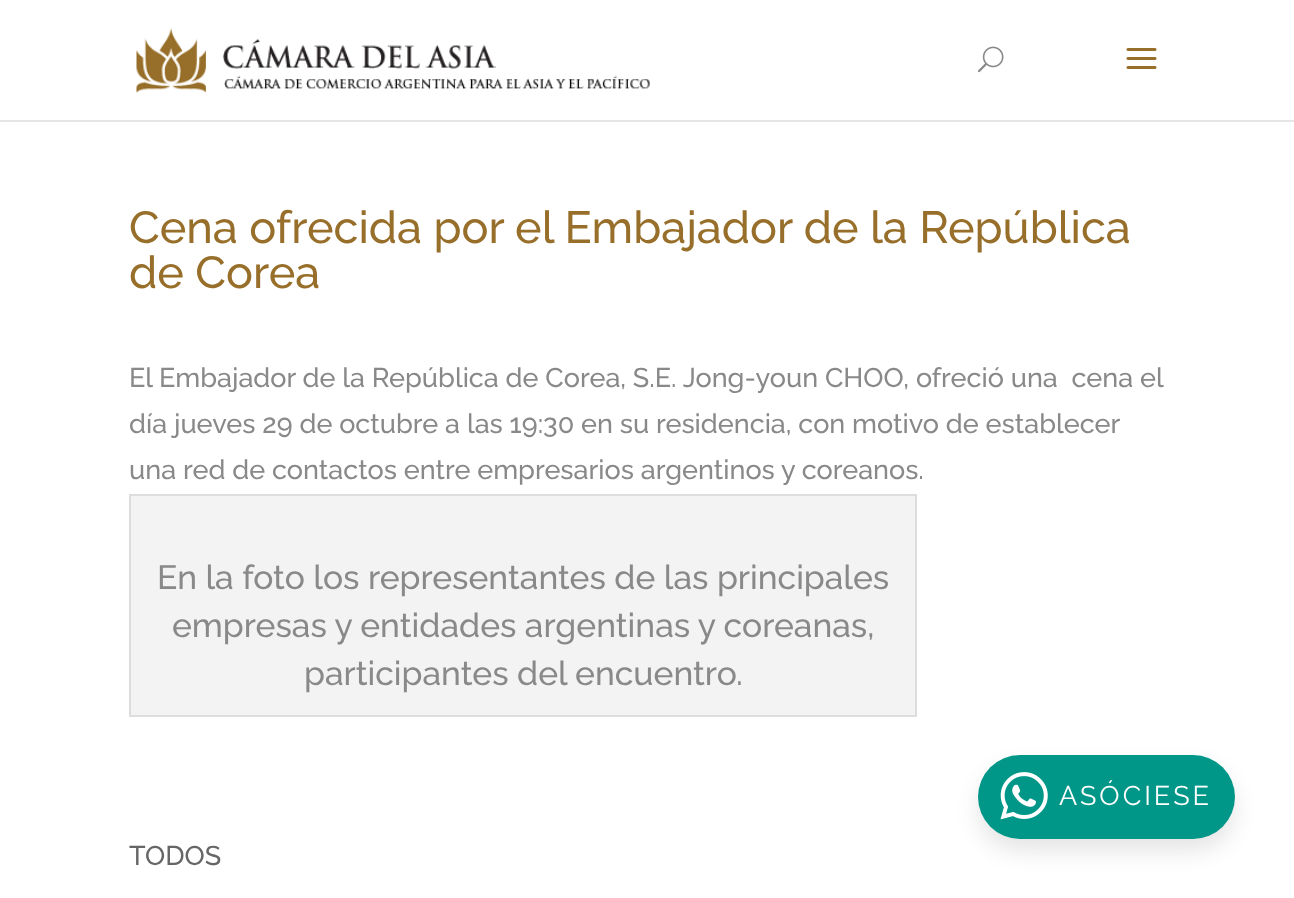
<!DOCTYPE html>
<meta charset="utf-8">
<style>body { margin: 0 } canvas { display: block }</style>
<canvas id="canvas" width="1294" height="898"></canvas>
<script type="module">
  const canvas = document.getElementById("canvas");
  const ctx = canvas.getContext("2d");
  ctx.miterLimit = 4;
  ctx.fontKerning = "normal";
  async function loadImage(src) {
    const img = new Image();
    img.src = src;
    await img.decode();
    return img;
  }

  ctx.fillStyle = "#ffffff";
  ctx.fillRect(0, 0, 1294, 898);
  ctx.fillStyle = "#e6e6e6";
  ctx.beginPath();
  ctx.moveTo(0, 120);
  ctx.lineTo(0, 122);
  ctx.lineTo(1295, 122);
  ctx.lineTo(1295, 2);
  ctx.lineTo(1294, 2);
  ctx.lineTo(1294, 120);
  ctx.closePath();
  ctx.fill();
  ctx.drawImage(await loadImage("img1.png"), 136, 27, 514, 66);
  ctx.drawImage(await loadImage("img2.png"), 977, 46, 27, 27);
  ctx.drawImage(await loadImage("img3.png"), 1126, 48, 31, 21);
  ctx.font = "100 45px Raleway";
  ctx.fillStyle = "#976f2a";
  ctx.fillText("Cena ofrecida por el Embajador de la República", 129, 243);
  ctx.fillText("de Corea", 129, 288);
  ctx.font = "100 27px Raleway";
  ctx.fillStyle = "#898989";
  ctx.fillText("El Embajador de la República de Corea, S.E. Jong-youn CHOO, ofreció una  cena el", 129, 387);
  ctx.fillText("día jueves 29 de octubre a las 19:30 en su residencia, con motivo de establecer", 129, 433);
  ctx.fillText("una red de contactos entre empresarios argentinos y coreanos.", 129, 479);
  ctx.fillStyle = "#f3f3f3";
  ctx.beginPath();
  ctx.rect(130, 495, 786, 221);
  ctx.fill();
  ctx.strokeStyle = "#dddddd";
  ctx.lineWidth = 2;
  ctx.stroke();
  ctx.font = "100 33.6px Raleway";
  ctx.fillStyle = "#898989";
  ctx.fillText("En la foto los representantes de las principales", 157, 589);
  ctx.fillText("empresas y entidades argentinas y coreanas,", 172, 637);
  ctx.fillText("participantes del encuentro.", 304, 685);
  ctx.font = "100 27px Raleway";
  ctx.fillStyle = "#666666";
  ctx.fillText("TODOS", 129, 865);
  ctx.fillStyle = "rgba(0, 0, 0, 0.1)";
  ctx.filter = "blur(11px)";
  ctx.beginPath();
  ctx.roundRect(978, 767, 257, 84, 42);
  ctx.fill();
  ctx.filter = "none";
  ctx.fillStyle = "#009688";
  ctx.beginPath();
  ctx.roundRect(978, 755, 257, 84, 42);
  ctx.fill();
  ctx.drawImage(await loadImage("img4.png"), 1000, 772, 48, 48);
  ctx.letterSpacing = "3px";
  ctx.font = "100 27px 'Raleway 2'";
  ctx.fillStyle = "#ffffff";
  ctx.fillText("ASÓCIESE", 1059, 805);
</script>
